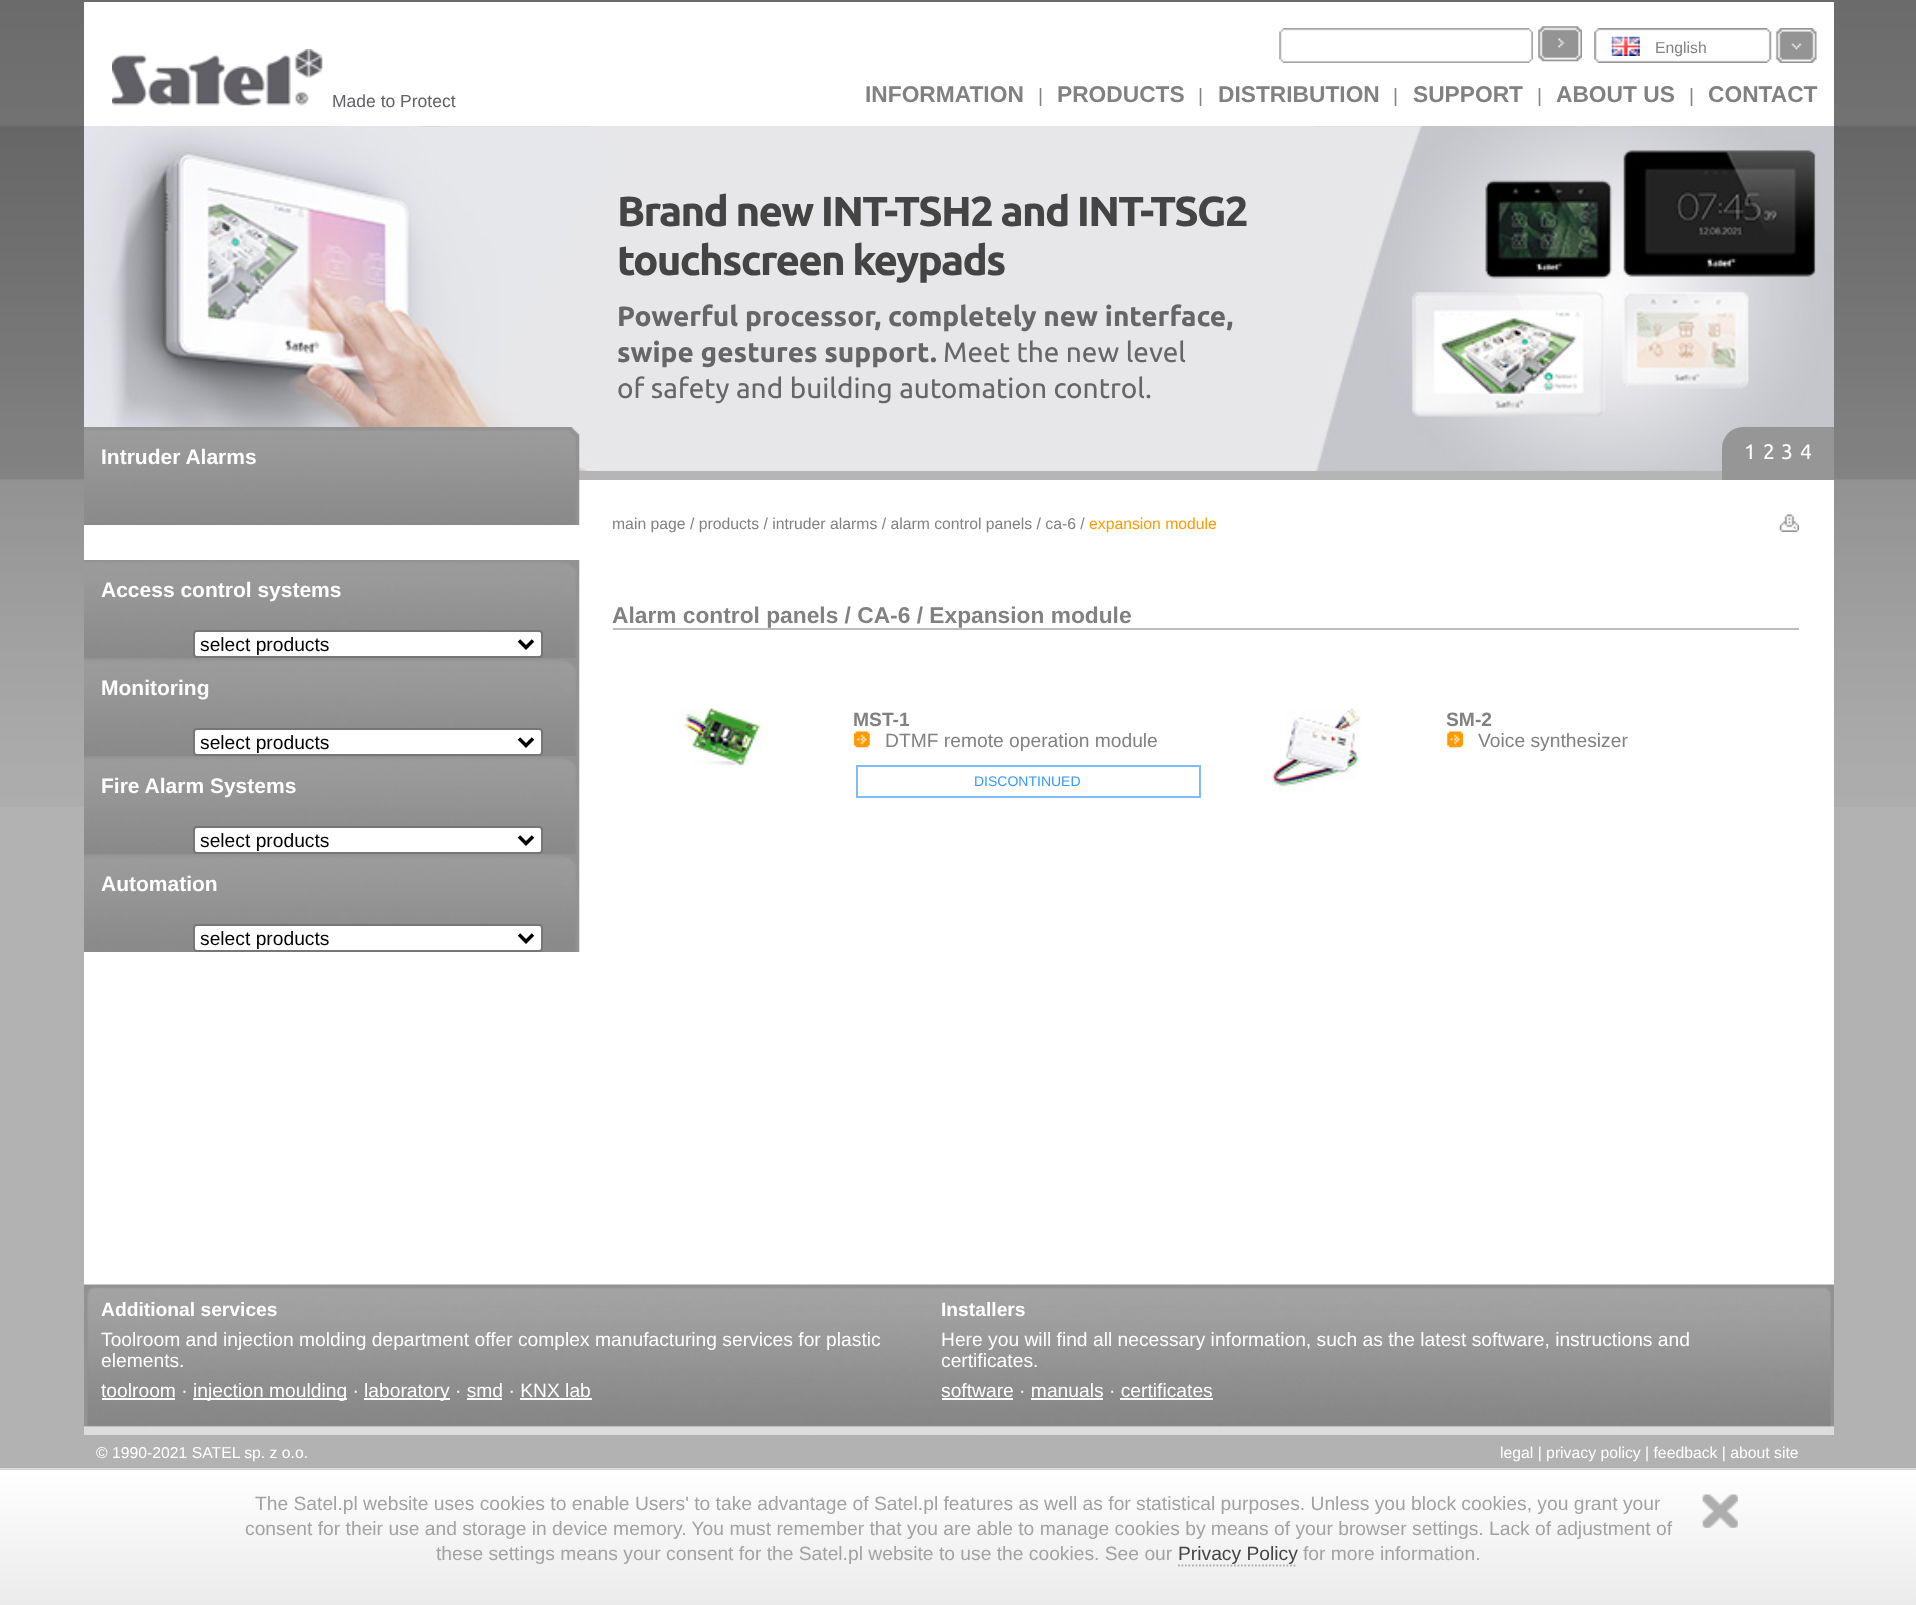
<!DOCTYPE html>
<meta charset="utf-8">
<style>body { margin: 0 } canvas { display: block }</style>
<canvas id="canvas" width="1916" height="1605"></canvas>
<script type="module">
  const canvas = document.getElementById("canvas");
  const ctx = canvas.getContext("2d");
  ctx.miterLimit = 4;
  ctx.fontKerning = "normal";
  async function loadImage(src) {
    const img = new Image();
    img.src = src;
    await img.decode();
    return img;
  }
  let gradient;

  ctx.fillStyle = "#b2b2b2";
  ctx.fillRect(0, 0, 1916, 1605);
  ctx.drawImage(await loadImage("img1.png"), 0, 0, 1916, 807);
  ctx.fillStyle = "#ffffff";
  ctx.fillRect(84, 2, 1750, 124);
  ctx.drawImage(await loadImage("img2.png"), 1279, 28, 254, 35);
  ctx.drawImage(await loadImage("img3.png"), 1538, 26, 44, 36);
  ctx.drawImage(await loadImage("img4.png"), 1594, 28, 223, 35);
  ctx.drawImage(await loadImage("img5.png"), 1611, 36, 29, 20);
  ctx.font = "15.75px Liberation Sans";
  ctx.fillStyle = "#818181";
  ctx.fillText("English", 1655, 53);
  ctx.drawImage(await loadImage("img6.png"), 112, 49, 211, 57);
  ctx.font = "17.5px Liberation Sans";
  ctx.fillStyle = "#626066";
  ctx.fillText("Made to Protect", 332, 107);
  ctx.font = "bold 22.75px Liberation Sans";
  ctx.fillStyle = "#818181";
  ctx.fillText("INFORMATION", 865, 102);
  ctx.font = "19.25px Liberation Sans";
  ctx.fillText("|", 1038, 102);
  ctx.font = "bold 22.75px Liberation Sans";
  ctx.fillText("PRODUCTS", 1057, 102);
  ctx.font = "19.25px Liberation Sans";
  ctx.fillText("|", 1198, 102);
  ctx.font = "bold 22.75px Liberation Sans";
  ctx.fillText("DISTRIBUTION", 1218, 102);
  ctx.font = "19.25px Liberation Sans";
  ctx.fillText("|", 1393, 102);
  ctx.font = "bold 22.75px Liberation Sans";
  ctx.fillText("SUPPORT", 1413, 102);
  ctx.font = "19.25px Liberation Sans";
  ctx.fillText("|", 1537, 102);
  ctx.font = "bold 22.75px Liberation Sans";
  ctx.fillText("ABOUT US", 1556, 102);
  ctx.font = "19.25px Liberation Sans";
  ctx.fillText("|", 1689, 102);
  ctx.font = "bold 22.75px Liberation Sans";
  ctx.fillText("CONTACT", 1708, 102);
  ctx.drawImage(await loadImage("img7.png"), 84, 126, 1750, 345);
  ctx.letterSpacing = "-1.75px";
  ctx.font = "bold 42px Ubuntu";
  ctx.fillStyle = "#444444";
  ctx.fillText("Brand new INT-TSH2 and INT-TSG2", 617, 226);
  ctx.fillText("touchscreen keypads", 617, 275);
  ctx.letterSpacing = "0px";
  ctx.font = "bold 28px Ubuntu";
  ctx.fillStyle = "#666666";
  ctx.fillText("Powerful processor, completely new interface,", 617, 326);
  ctx.fillText("swipe gestures support.", 617, 362);
  ctx.font = "28px Ubuntu";
  ctx.fillText("Meet the new level", 943, 362);
  ctx.fillText("of safety and building automation control.", 617, 398);
  ctx.fillStyle = "#969696";
  ctx.beginPath();
  ctx.roundRect(1722, 427, 112, 53, [21, 0, 0, 0]);
  ctx.fill();
  ctx.font = "21px Ubuntu";
  ctx.fillStyle = "#ffffff";
  ctx.fillText("1", 1744, 459);
  ctx.fillText("2", 1763, 459);
  ctx.fillText("3", 1781, 459);
  ctx.fillText("4", 1800, 459);
  ctx.fillStyle = "#b5b5b5";
  ctx.fillRect(579, 471, 1143, 9);
  ctx.fillStyle = "#ffffff";
  ctx.fillRect(84, 480, 1750, 805);
  ctx.drawImage(await loadImage("img8.png"), 84, 427, 496, 98);
  ctx.font = "bold 21px Liberation Sans";
  ctx.fillText("Intruder Alarms", 101, 464);
  ctx.drawImage(await loadImage("img9.png"), 84, 560, 496, 98);
  ctx.fillText("Access control systems", 101, 597);
  ctx.beginPath();
  ctx.roundRect(194, 631, 348, 26, 3);
  ctx.fill();
  ctx.strokeStyle = "#767676";
  ctx.lineWidth = 2;
  ctx.stroke();
  ctx.beginPath();
  ctx.moveTo(519, 640.5);
  ctx.lineTo(526, 647.5);
  ctx.lineTo(533, 640.5);
  ctx.strokeStyle = "#000000";
  ctx.lineWidth = 3.5;
  ctx.stroke();
  ctx.font = "19.25px Liberation Sans";
  ctx.fillStyle = "#000000";
  ctx.fillText("select products", 200, 651);
  ctx.drawImage(await loadImage("img9.png"), 84, 658, 496, 98);
  ctx.font = "bold 21px Liberation Sans";
  ctx.fillStyle = "#ffffff";
  ctx.fillText("Monitoring", 101, 695);
  ctx.beginPath();
  ctx.roundRect(194, 729, 348, 26, 3);
  ctx.fill();
  ctx.strokeStyle = "#767676";
  ctx.lineWidth = 2;
  ctx.stroke();
  ctx.beginPath();
  ctx.moveTo(519, 738.5);
  ctx.lineTo(526, 745.5);
  ctx.lineTo(533, 738.5);
  ctx.strokeStyle = "#000000";
  ctx.lineWidth = 3.5;
  ctx.stroke();
  ctx.font = "19.25px Liberation Sans";
  ctx.fillStyle = "#000000";
  ctx.fillText("select products", 200, 749);
  ctx.drawImage(await loadImage("img9.png"), 84, 756, 496, 98);
  ctx.font = "bold 21px Liberation Sans";
  ctx.fillStyle = "#ffffff";
  ctx.fillText("Fire Alarm Systems", 101, 793);
  ctx.beginPath();
  ctx.roundRect(194, 827, 348, 26, 3);
  ctx.fill();
  ctx.strokeStyle = "#767676";
  ctx.lineWidth = 2;
  ctx.stroke();
  ctx.beginPath();
  ctx.moveTo(519, 836.5);
  ctx.lineTo(526, 843.5);
  ctx.lineTo(533, 836.5);
  ctx.strokeStyle = "#000000";
  ctx.lineWidth = 3.5;
  ctx.stroke();
  ctx.font = "19.25px Liberation Sans";
  ctx.fillStyle = "#000000";
  ctx.fillText("select products", 200, 847);
  ctx.drawImage(await loadImage("img9.png"), 84, 854, 496, 98);
  ctx.font = "bold 21px Liberation Sans";
  ctx.fillStyle = "#ffffff";
  ctx.fillText("Automation", 101, 891);
  ctx.beginPath();
  ctx.roundRect(194, 925, 348, 26, 3);
  ctx.fill();
  ctx.strokeStyle = "#767676";
  ctx.lineWidth = 2;
  ctx.stroke();
  ctx.beginPath();
  ctx.moveTo(519, 934.5);
  ctx.lineTo(526, 941.5);
  ctx.lineTo(533, 934.5);
  ctx.strokeStyle = "#000000";
  ctx.lineWidth = 3.5;
  ctx.stroke();
  ctx.font = "19.25px Liberation Sans";
  ctx.fillStyle = "#000000";
  ctx.fillText("select products", 200, 945);
  ctx.font = "15.75px Liberation Sans";
  ctx.fillStyle = "#818181";
  ctx.fillText("main page / products / intruder alarms / alarm control panels / ca-6 /", 612, 529);
  ctx.fillStyle = "#ff9900";
  ctx.fillText("expansion module", 1089, 529);
  ctx.drawImage(await loadImage("img10.png"), 1779, 514, 20, 18);
  ctx.fillStyle = "#bebebe";
  ctx.fillRect(613, 628, 1186, 2);
  ctx.font = "bold 22.75px Liberation Sans";
  ctx.fillStyle = "#818181";
  ctx.fillText("Alarm control panels / CA-6 / Expansion module", 612, 623);
  ctx.drawImage(await loadImage("img11.png"), 679, 708, 84, 58);
  ctx.font = "bold 19.25px Liberation Sans";
  ctx.fillText("MST-1", 853, 726);
  ctx.drawImage(await loadImage("img12.png"), 854, 731, 16, 17);
  ctx.font = "19.25px Liberation Sans";
  ctx.fillText("DTMF remote operation module", 885, 747);
  ctx.strokeStyle = "#7fbdfa";
  ctx.lineWidth = 2;
  ctx.strokeRect(857, 766, 343, 31);
  ctx.font = "14px Liberation Sans";
  ctx.fillStyle = "#3399ff";
  ctx.fillText("DISCONTINUED", 974, 786);
  ctx.drawImage(await loadImage("img13.png"), 1272, 708, 89, 84);
  ctx.font = "bold 19.25px Liberation Sans";
  ctx.fillStyle = "#818181";
  ctx.fillText("SM-2", 1446, 726);
  ctx.drawImage(await loadImage("img14.png"), 1447, 731, 16, 17);
  ctx.font = "19.25px Liberation Sans";
  ctx.fillText("Voice synthesizer", 1478, 747);
  ctx.drawImage(await loadImage("img15.png"), 84, 1284, 1750, 151);
  ctx.font = "bold 19.25px Liberation Sans";
  ctx.fillStyle = "#ffffff";
  ctx.fillText("Additional services", 101, 1316);
  ctx.font = "19.25px Liberation Sans";
  ctx.fillText("Toolroom and injection molding department offer complex manufacturing services for plastic", 101, 1346);
  ctx.fillText("elements.", 101, 1367);
  ctx.fillText("toolroom ·", 101, 1397);
  ctx.fillRect(102, 1398, 73, 2);
  ctx.fillRect(193, 1398, 154, 2);
  ctx.fillText("injection moulding ·", 193, 1397);
  ctx.fillRect(364, 1398, 86, 2);
  ctx.fillText("laboratory · smd · KNX lab", 364, 1397);
  ctx.fillRect(467, 1398, 35, 2);
  ctx.fillRect(520, 1398, 72, 2);
  ctx.font = "bold 19.25px Liberation Sans";
  ctx.fillText("Installers", 941, 1316);
  ctx.font = "19.25px Liberation Sans";
  ctx.fillText("Here you will find all necessary information, such as the latest software, instructions and", 941, 1346);
  ctx.fillText("certificates.", 941, 1367);
  ctx.fillText("software · manuals · certificates", 941, 1397);
  ctx.fillRect(942, 1398, 71, 2);
  ctx.fillRect(1031, 1398, 72, 2);
  ctx.fillRect(1120, 1398, 93, 2);
  ctx.font = "15.75px Liberation Sans";
  ctx.fillText("© 1990-2021 SATEL sp. z o.o.", 96, 1458);
  ctx.fillText("legal | privacy policy | feedback | about site", 1500, 1458);
  gradient = ctx.createLinearGradient(958, 1470, 958, 1605);
  gradient.addColorStop(0, "#ffffff");
  gradient.addColorStop(1, "#ebebeb");
  ctx.fillStyle = gradient;
  ctx.fillRect(0, 1470, 1916, 135);
  ctx.fillStyle = "#d7d7d7";
  ctx.fillRect(0, 1468, 1916, 2);
  ctx.font = "19.25px Liberation Sans";
  ctx.fillStyle = "#a2a2a2";
  ctx.fillText("The Satel.pl website uses cookies to enable Users' to take advantage of Satel.pl features as well as for statistical purposes. Unless you block cookies, you grant your", 255, 1510);
  ctx.fillText("consent for their use and storage in device memory. You must remember that you are able to manage cookies by means of your browser settings. Lack of adjustment of", 245, 1535);
  ctx.fillText("these settings means your consent for the Satel.pl website to use the cookies. See our", 436, 1560);
  ctx.fillStyle = "#444444";
  ctx.fillText("Privacy Policy", 1178, 1560);
  ctx.beginPath();
  ctx.moveTo(1178, 1565.5);
  ctx.lineTo(1297, 1565.5);
  ctx.strokeStyle = "#aeaeae";
  ctx.lineWidth = 1.8;
  ctx.setLineDash([1.75, 1.75]);
  ctx.stroke();
  ctx.fillStyle = "#a2a2a2";
  ctx.fillText("for more information.", 1303, 1560);
  ctx.drawImage(await loadImage("img16.png"), 1702, 1494, 36, 34);
</script>
